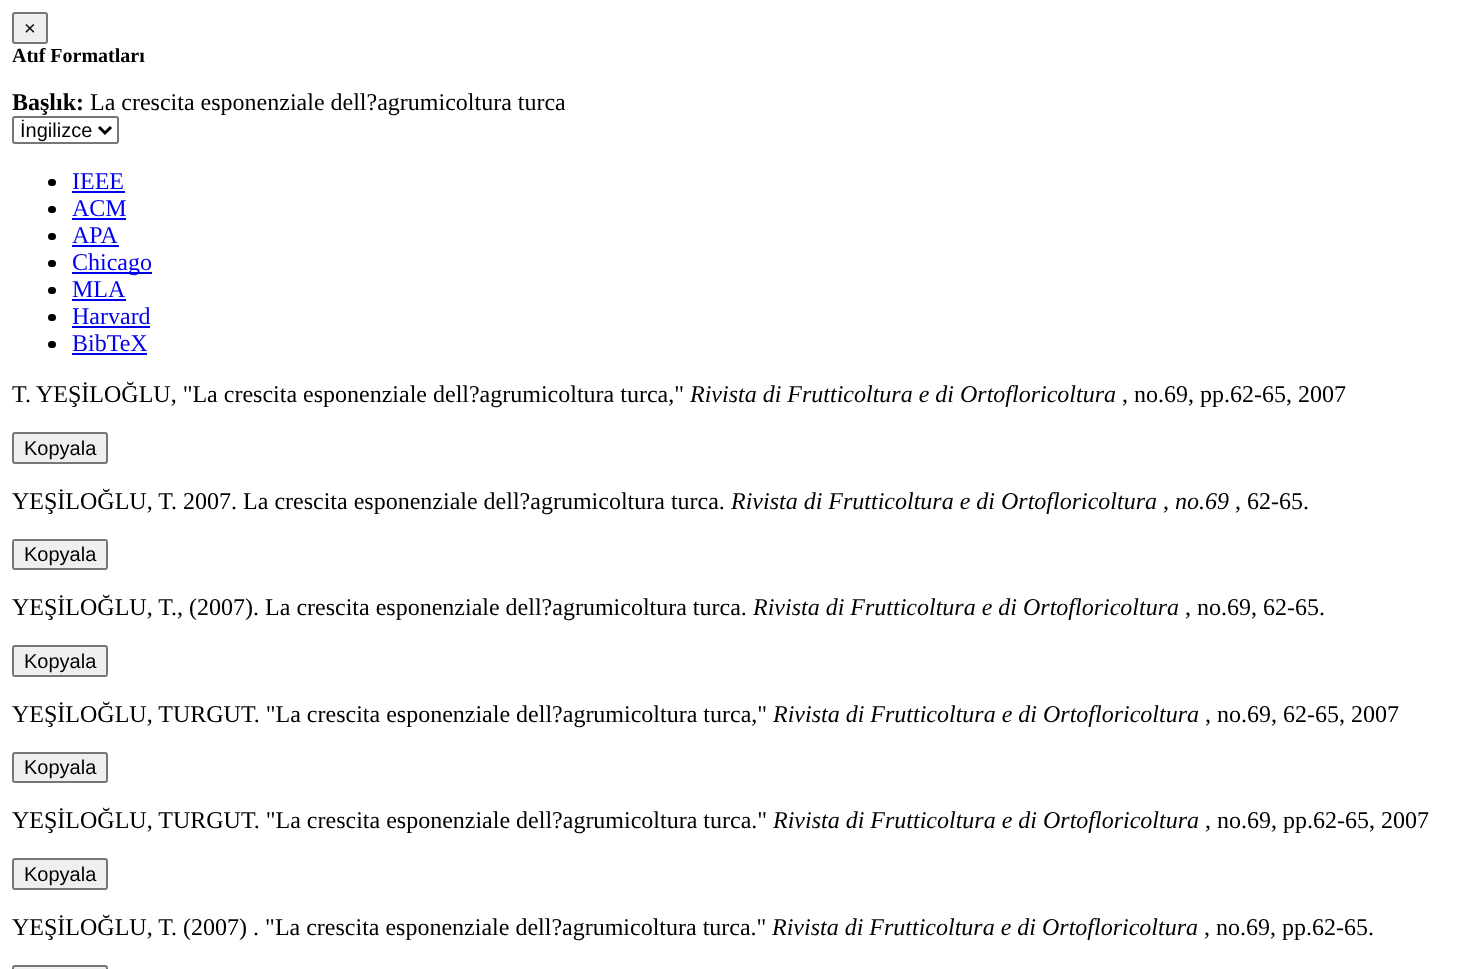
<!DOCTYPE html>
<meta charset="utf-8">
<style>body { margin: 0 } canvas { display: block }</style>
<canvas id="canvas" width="1469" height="969"></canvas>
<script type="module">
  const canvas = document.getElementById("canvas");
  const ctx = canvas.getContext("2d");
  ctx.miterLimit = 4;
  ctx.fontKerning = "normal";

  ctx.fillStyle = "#ffffff";
  ctx.fillRect(0, 0, 1469, 969);
  ctx.fillStyle = "#efefef";
  ctx.beginPath();
  ctx.roundRect(13, 13, 34, 30, 2);
  ctx.fill();
  ctx.strokeStyle = "#767676";
  ctx.lineWidth = 2;
  ctx.stroke();
  ctx.font = "20px Liberation Sans";
  ctx.fillStyle = "#000000";
  ctx.fillText("×", 24, 35);
  ctx.font = "bold 20px Liberation Serif";
  ctx.fillText("Atıf Formatları", 12, 62);
  ctx.font = "bold 24px Liberation Serif";
  ctx.fillText("Başlık:", 12, 110);
  ctx.font = "24px Liberation Serif";
  ctx.fillText("La crescita esponenziale dell?agrumicoltura turca", 90, 110);
  ctx.beginPath();
  ctx.roundRect(13, 117, 105, 26, 2);
  ctx.stroke();
  ctx.beginPath();
  ctx.moveTo(99, 127);
  ctx.lineTo(105, 133);
  ctx.lineTo(111, 127);
  ctx.strokeStyle = "#000000";
  ctx.lineWidth = 3;
  ctx.stroke();
  ctx.font = "20px Liberation Sans";
  ctx.fillText("İngilizce", 20, 137);
  ctx.beginPath();
  ctx.roundRect(48, 179, 8, 7, 3.5);
  ctx.fill();
  ctx.font = "24px Liberation Serif";
  ctx.fillStyle = "#0000ee";
  ctx.fillText("IEEE", 72, 189);
  ctx.fillRect(72, 191, 53, 2);
  ctx.fillStyle = "#000000";
  ctx.beginPath();
  ctx.roundRect(48, 206, 8, 7, 3.5);
  ctx.fill();
  ctx.fillStyle = "#0000ee";
  ctx.fillText("ACM", 72, 216);
  ctx.fillRect(72, 218, 54, 2);
  ctx.fillStyle = "#000000";
  ctx.beginPath();
  ctx.roundRect(48, 233, 8, 7, 3.5);
  ctx.fill();
  ctx.fillStyle = "#0000ee";
  ctx.fillText("APA", 72, 243);
  ctx.fillRect(72, 245, 47, 2);
  ctx.fillStyle = "#000000";
  ctx.beginPath();
  ctx.roundRect(48, 260, 8, 7, 3.5);
  ctx.fill();
  ctx.fillStyle = "#0000ee";
  ctx.fillRect(72, 272, 80, 2);
  ctx.fillText("Chicago", 72, 270);
  ctx.fillStyle = "#000000";
  ctx.beginPath();
  ctx.roundRect(48, 287, 8, 7, 3.5);
  ctx.fill();
  ctx.fillStyle = "#0000ee";
  ctx.fillText("MLA", 72, 297);
  ctx.fillRect(72, 299, 54, 2);
  ctx.fillStyle = "#000000";
  ctx.beginPath();
  ctx.roundRect(48, 314, 8, 7, 3.5);
  ctx.fill();
  ctx.fillStyle = "#0000ee";
  ctx.fillText("Harvard", 72, 324);
  ctx.fillRect(72, 326, 78, 2);
  ctx.fillStyle = "#000000";
  ctx.beginPath();
  ctx.roundRect(48, 341, 8, 7, 3.5);
  ctx.fill();
  ctx.fillStyle = "#0000ee";
  ctx.fillText("BibTeX", 72, 351);
  ctx.fillRect(72, 353, 75, 2);
  ctx.fillStyle = "#000000";
  ctx.fillText("T.", 12, 402);
  ctx.fillText("YEŞİLOĞLU, \"La crescita esponenziale dell?agrumicoltura turca,\"", 36, 402);
  ctx.font = "italic 24px Liberation Serif";
  ctx.fillText("Rivista di Frutticoltura e di Ortofloricoltura", 690, 402);
  ctx.font = "24px Liberation Serif";
  ctx.fillText(", no.69, pp.62-65, 2007", 1122, 402);
  ctx.fillStyle = "#efefef";
  ctx.beginPath();
  ctx.roundRect(13, 433, 94, 30, 2);
  ctx.fill();
  ctx.strokeStyle = "#767676";
  ctx.lineWidth = 2;
  ctx.stroke();
  ctx.font = "20px Liberation Sans";
  ctx.fillStyle = "#000000";
  ctx.fillText("Kopyala", 24, 455);
  ctx.font = "24px Liberation Serif";
  ctx.fillText("YEŞİLOĞLU, T. 2007. La crescita esponenziale dell?agrumicoltura turca.", 12, 509);
  ctx.font = "italic 24px Liberation Serif";
  ctx.fillText("Rivista di Frutticoltura e di Ortofloricoltura", 731, 509);
  ctx.font = "24px Liberation Serif";
  ctx.fillText(",", 1163, 509);
  ctx.font = "italic 24px Liberation Serif";
  ctx.fillText("no.69", 1175, 509);
  ctx.font = "24px Liberation Serif";
  ctx.fillText(", 62-65.", 1235, 509);
  ctx.fillStyle = "#efefef";
  ctx.beginPath();
  ctx.roundRect(13, 540, 94, 29, 2);
  ctx.fill();
  ctx.stroke();
  ctx.font = "20px Liberation Sans";
  ctx.fillStyle = "#000000";
  ctx.fillText("Kopyala", 24, 561);
  ctx.font = "24px Liberation Serif";
  ctx.fillText("YEŞİLOĞLU, T., (2007). La crescita esponenziale dell?agrumicoltura turca.", 12, 615);
  ctx.font = "italic 24px Liberation Serif";
  ctx.fillText("Rivista di Frutticoltura e di Ortofloricoltura", 753, 615);
  ctx.font = "24px Liberation Serif";
  ctx.fillText(", no.69, 62-65.", 1185, 615);
  ctx.fillStyle = "#efefef";
  ctx.beginPath();
  ctx.roundRect(13, 646, 94, 30, 2);
  ctx.fill();
  ctx.stroke();
  ctx.font = "20px Liberation Sans";
  ctx.fillStyle = "#000000";
  ctx.fillText("Kopyala", 24, 668);
  ctx.font = "24px Liberation Serif";
  ctx.fillText("YEŞİLOĞLU, TURGUT. \"La crescita esponenziale dell?agrumicoltura turca,\"", 12, 722);
  ctx.font = "italic 24px Liberation Serif";
  ctx.fillText("Rivista di Frutticoltura e di Ortofloricoltura", 773, 722);
  ctx.font = "24px Liberation Serif";
  ctx.fillText(", no.69, 62-65, 2007", 1205, 722);
  ctx.fillStyle = "#efefef";
  ctx.beginPath();
  ctx.roundRect(13, 753, 94, 29, 2);
  ctx.fill();
  ctx.stroke();
  ctx.font = "20px Liberation Sans";
  ctx.fillStyle = "#000000";
  ctx.fillText("Kopyala", 24, 774);
  ctx.font = "24px Liberation Serif";
  ctx.fillText("YEŞİLOĞLU, TURGUT. \"La crescita esponenziale dell?agrumicoltura turca.\"", 12, 828);
  ctx.font = "italic 24px Liberation Serif";
  ctx.fillText("Rivista di Frutticoltura e di Ortofloricoltura", 773, 828);
  ctx.font = "24px Liberation Serif";
  ctx.fillText(", no.69, pp.62-65, 2007", 1205, 828);
  ctx.fillStyle = "#efefef";
  ctx.beginPath();
  ctx.roundRect(13, 859, 94, 30, 2);
  ctx.fill();
  ctx.stroke();
  ctx.font = "20px Liberation Sans";
  ctx.fillStyle = "#000000";
  ctx.fillText("Kopyala", 24, 881);
  ctx.font = "24px Liberation Serif";
  ctx.fillText("YEŞİLOĞLU, T. (2007) . \"La crescita esponenziale dell?agrumicoltura turca.\"", 12, 935);
  ctx.font = "italic 24px Liberation Serif";
  ctx.fillText("Rivista di Frutticoltura e di Ortofloricoltura", 772, 935);
  ctx.font = "24px Liberation Serif";
  ctx.fillText(", no.69, pp.62-65.", 1204, 935);
  ctx.fillStyle = "#efefef";
  ctx.beginPath();
  ctx.roundRect(13, 966, 94, 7, 2);
  ctx.fill();
  ctx.stroke();
</script>
